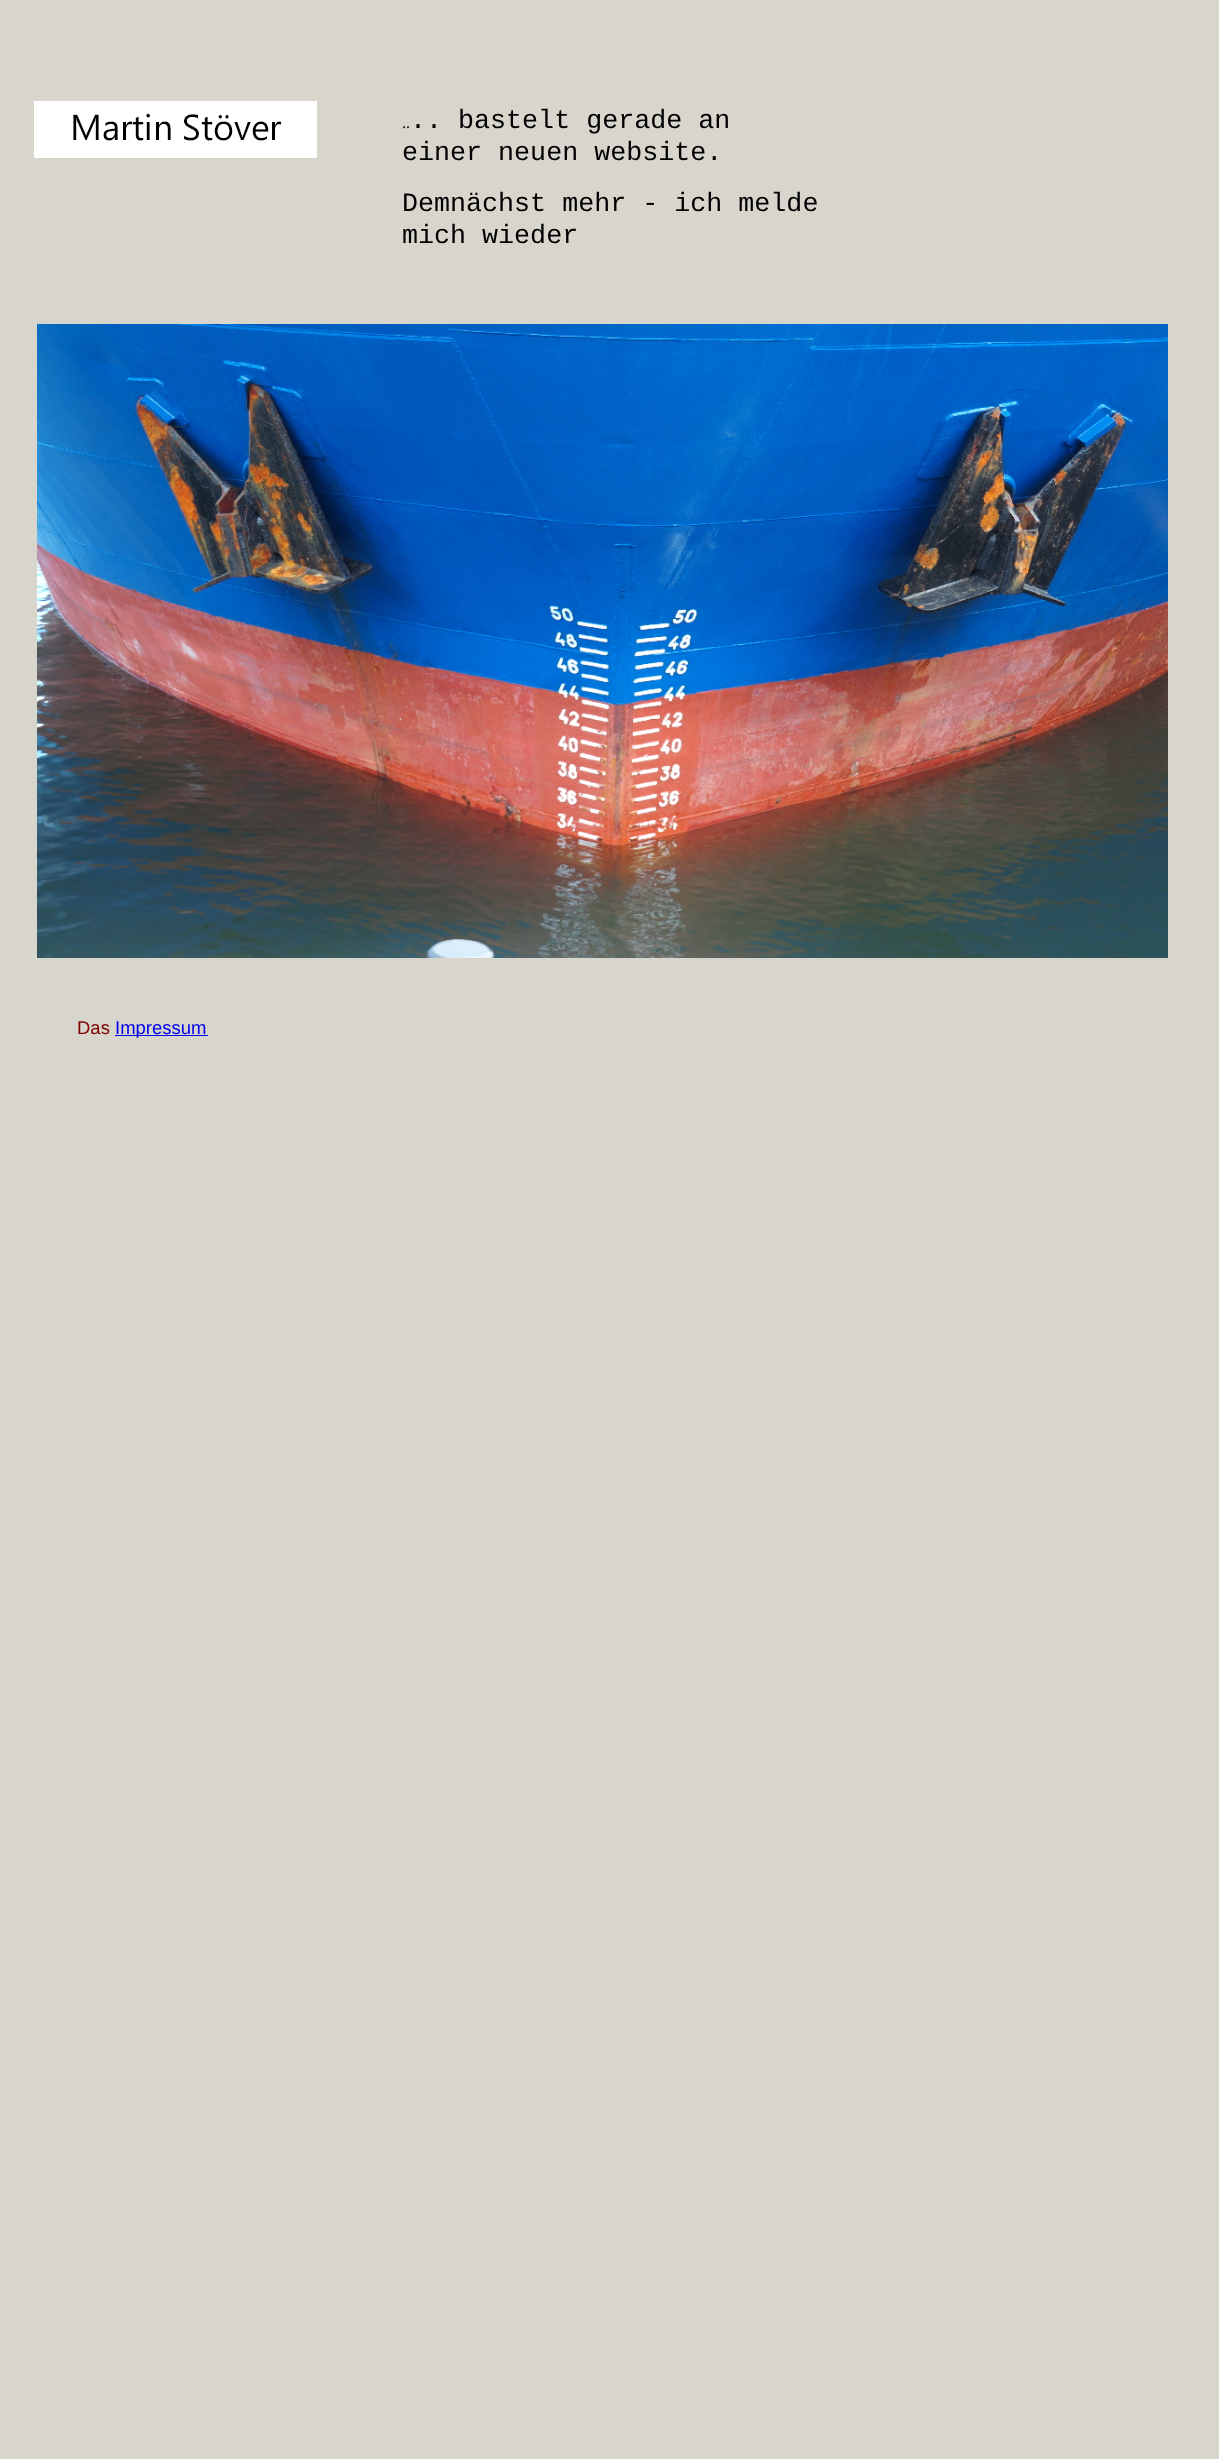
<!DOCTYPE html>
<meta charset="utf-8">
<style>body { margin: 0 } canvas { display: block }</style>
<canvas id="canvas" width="1219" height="2459"></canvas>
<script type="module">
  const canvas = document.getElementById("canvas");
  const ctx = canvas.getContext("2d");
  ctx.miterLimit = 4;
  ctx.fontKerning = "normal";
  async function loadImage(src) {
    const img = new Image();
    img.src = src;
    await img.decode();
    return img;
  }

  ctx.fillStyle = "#d8d5cc";
  ctx.fillRect(0, 0, 1219, 2459);
  ctx.drawImage(await loadImage("img1.png"), 34, 101, 283, 57);
  ctx.font = "16px Liberation Serif";
  ctx.fillStyle = "#000000";
  ctx.fillText("..", 402, 128);
  ctx.font = "26.7px Liberation Mono";
  ctx.fillText(".. bastelt gerade an", 410, 128);
  ctx.fillText("einer neuen website.", 402, 160);
  ctx.fillText("Demnächst mehr - ich melde", 402, 211);
  ctx.fillText("mich wieder", 402, 243);
  ctx.drawImage(await loadImage("img2.png"), 37, 324, 1131, 634);
  ctx.font = "18.5px Liberation Sans";
  ctx.fillStyle = "#800000";
  ctx.fillText("Das", 77, 1034);
  ctx.fillStyle = "#0000ee";
  ctx.fillRect(115, 1035, 93, 1);
  ctx.fillText("Impressum", 115, 1034);
</script>
